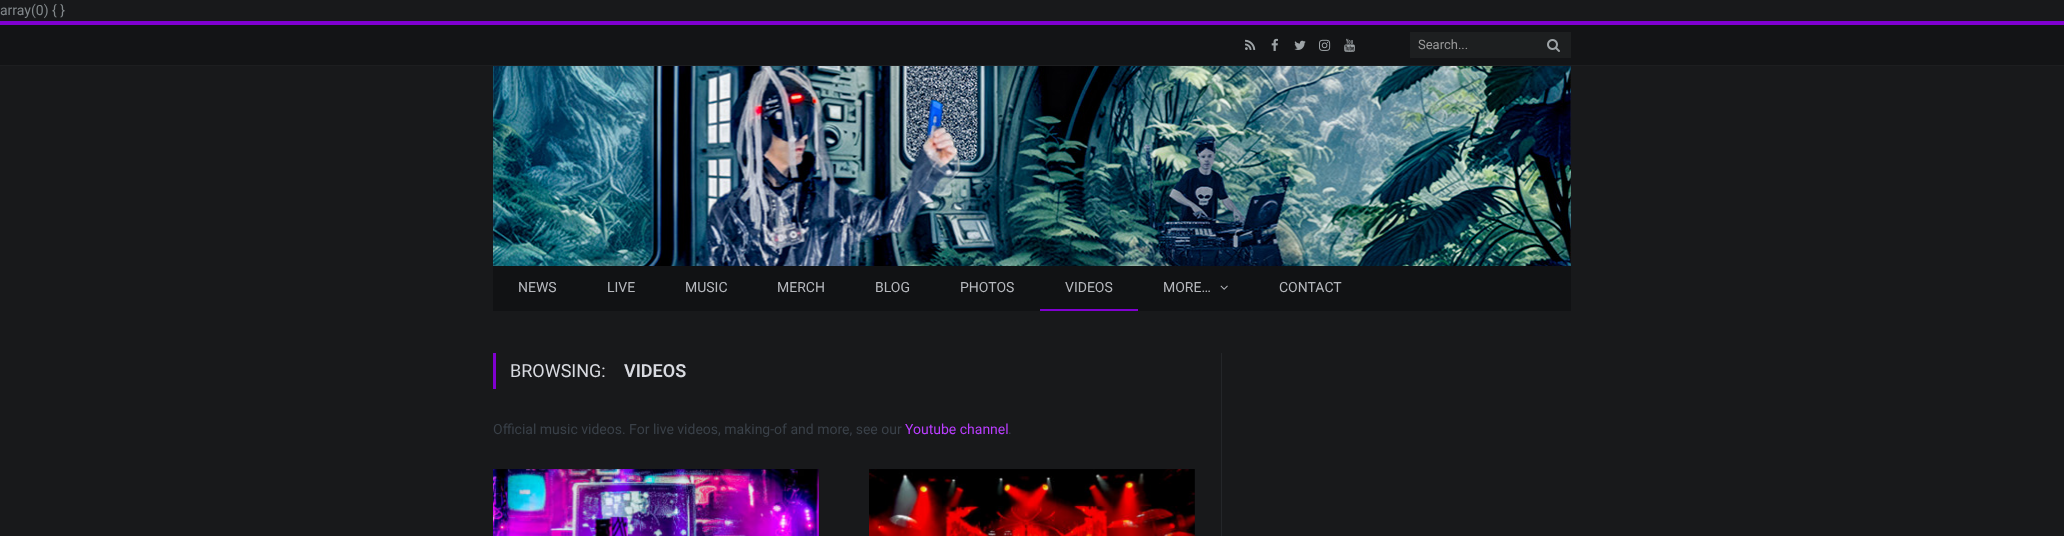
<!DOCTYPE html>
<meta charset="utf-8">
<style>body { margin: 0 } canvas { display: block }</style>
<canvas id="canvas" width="2064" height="536"></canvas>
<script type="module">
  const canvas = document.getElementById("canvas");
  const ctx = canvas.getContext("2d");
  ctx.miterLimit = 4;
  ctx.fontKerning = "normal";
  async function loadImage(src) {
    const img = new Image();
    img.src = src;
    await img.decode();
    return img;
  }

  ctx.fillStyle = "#18191b";
  ctx.fillRect(0, 0, 2064, 536);
  ctx.font = "14px Roboto";
  ctx.fillStyle = "#82888b";
  ctx.fillText("array(0) { }", 0, 15);
  ctx.fillStyle = "#131416";
  ctx.fillRect(0, 25, 2064, 40);
  ctx.fillStyle = "#8000d0";
  ctx.fillRect(0, 21, 2064, 4);
  ctx.fillStyle = "#1d1e20";
  ctx.fillRect(0, 65, 2064, 1);
  ctx.drawImage(await loadImage("img1.png"), 1245, 39, 11, 11);
  ctx.drawImage(await loadImage("img2.png"), 1271, 38, 7, 13);
  ctx.drawImage(await loadImage("img3.png"), 1294, 40, 12, 10);
  ctx.drawImage(await loadImage("img4.png"), 1319, 39, 12, 12);
  ctx.drawImage(await loadImage("img5.png"), 1344, 38, 11, 14);
  ctx.fillStyle = "#1d1f20";
  ctx.fillRect(1410, 32, 161, 26);
  ctx.font = "13px Roboto";
  ctx.fillStyle = "#999999";
  ctx.fillText("Search...", 1418, 49);
  ctx.drawImage(await loadImage("img6.png"), 1547, 39, 13, 13);
  ctx.drawImage(await loadImage("img7.png"), 493, 66, 1078, 200);
  ctx.fillStyle = "#111214";
  ctx.fillRect(493, 266, 1078, 45);
  ctx.font = "14px Roboto";
  ctx.fillStyle = "#b7b9be";
  ctx.fillText("NEWS", 518, 292);
  ctx.fillText("LIVE", 607, 292);
  ctx.fillText("MUSIC", 685, 292);
  ctx.fillText("MERCH", 777, 292);
  ctx.fillText("BLOG", 875, 292);
  ctx.fillText("PHOTOS", 960, 292);
  ctx.fillStyle = "#8000d0";
  ctx.fillRect(1040, 309, 98, 2);
  ctx.fillStyle = "#b7b9be";
  ctx.fillText("VIDEOS", 1065, 292);
  ctx.fillText("MORE…", 1163, 292);
  ctx.drawImage(await loadImage("img8.png"), 1220, 285, 8, 5);
  ctx.fillText("CONTACT", 1279, 292);
  ctx.fillStyle = "#8000d0";
  ctx.fillRect(493, 353, 3, 36);
  ctx.font = "18px Roboto";
  ctx.fillStyle = "#d8dae0";
  ctx.fillText("BROWSING:", 510, 377);
  ctx.font = "600 18px Roboto";
  ctx.fillText("VIDEOS", 624, 377);
  ctx.font = "14px Roboto";
  ctx.fillStyle = "#3a4149";
  ctx.fillText("Official music videos. For live videos, making-of and more, see our", 493, 434);
  ctx.fillStyle = "#ba3eff";
  ctx.fillText("Youtube channel", 905, 434);
  ctx.fillStyle = "#3a4149";
  ctx.fillText(".", 1008, 434);
  ctx.drawImage(await loadImage("img9.png"), 493, 469, 326, 67);
  ctx.drawImage(await loadImage("img10.png"), 869, 469, 326, 67);
  ctx.fillStyle = "#242629";
  ctx.fillRect(1221, 353, 1, 183);
</script>
